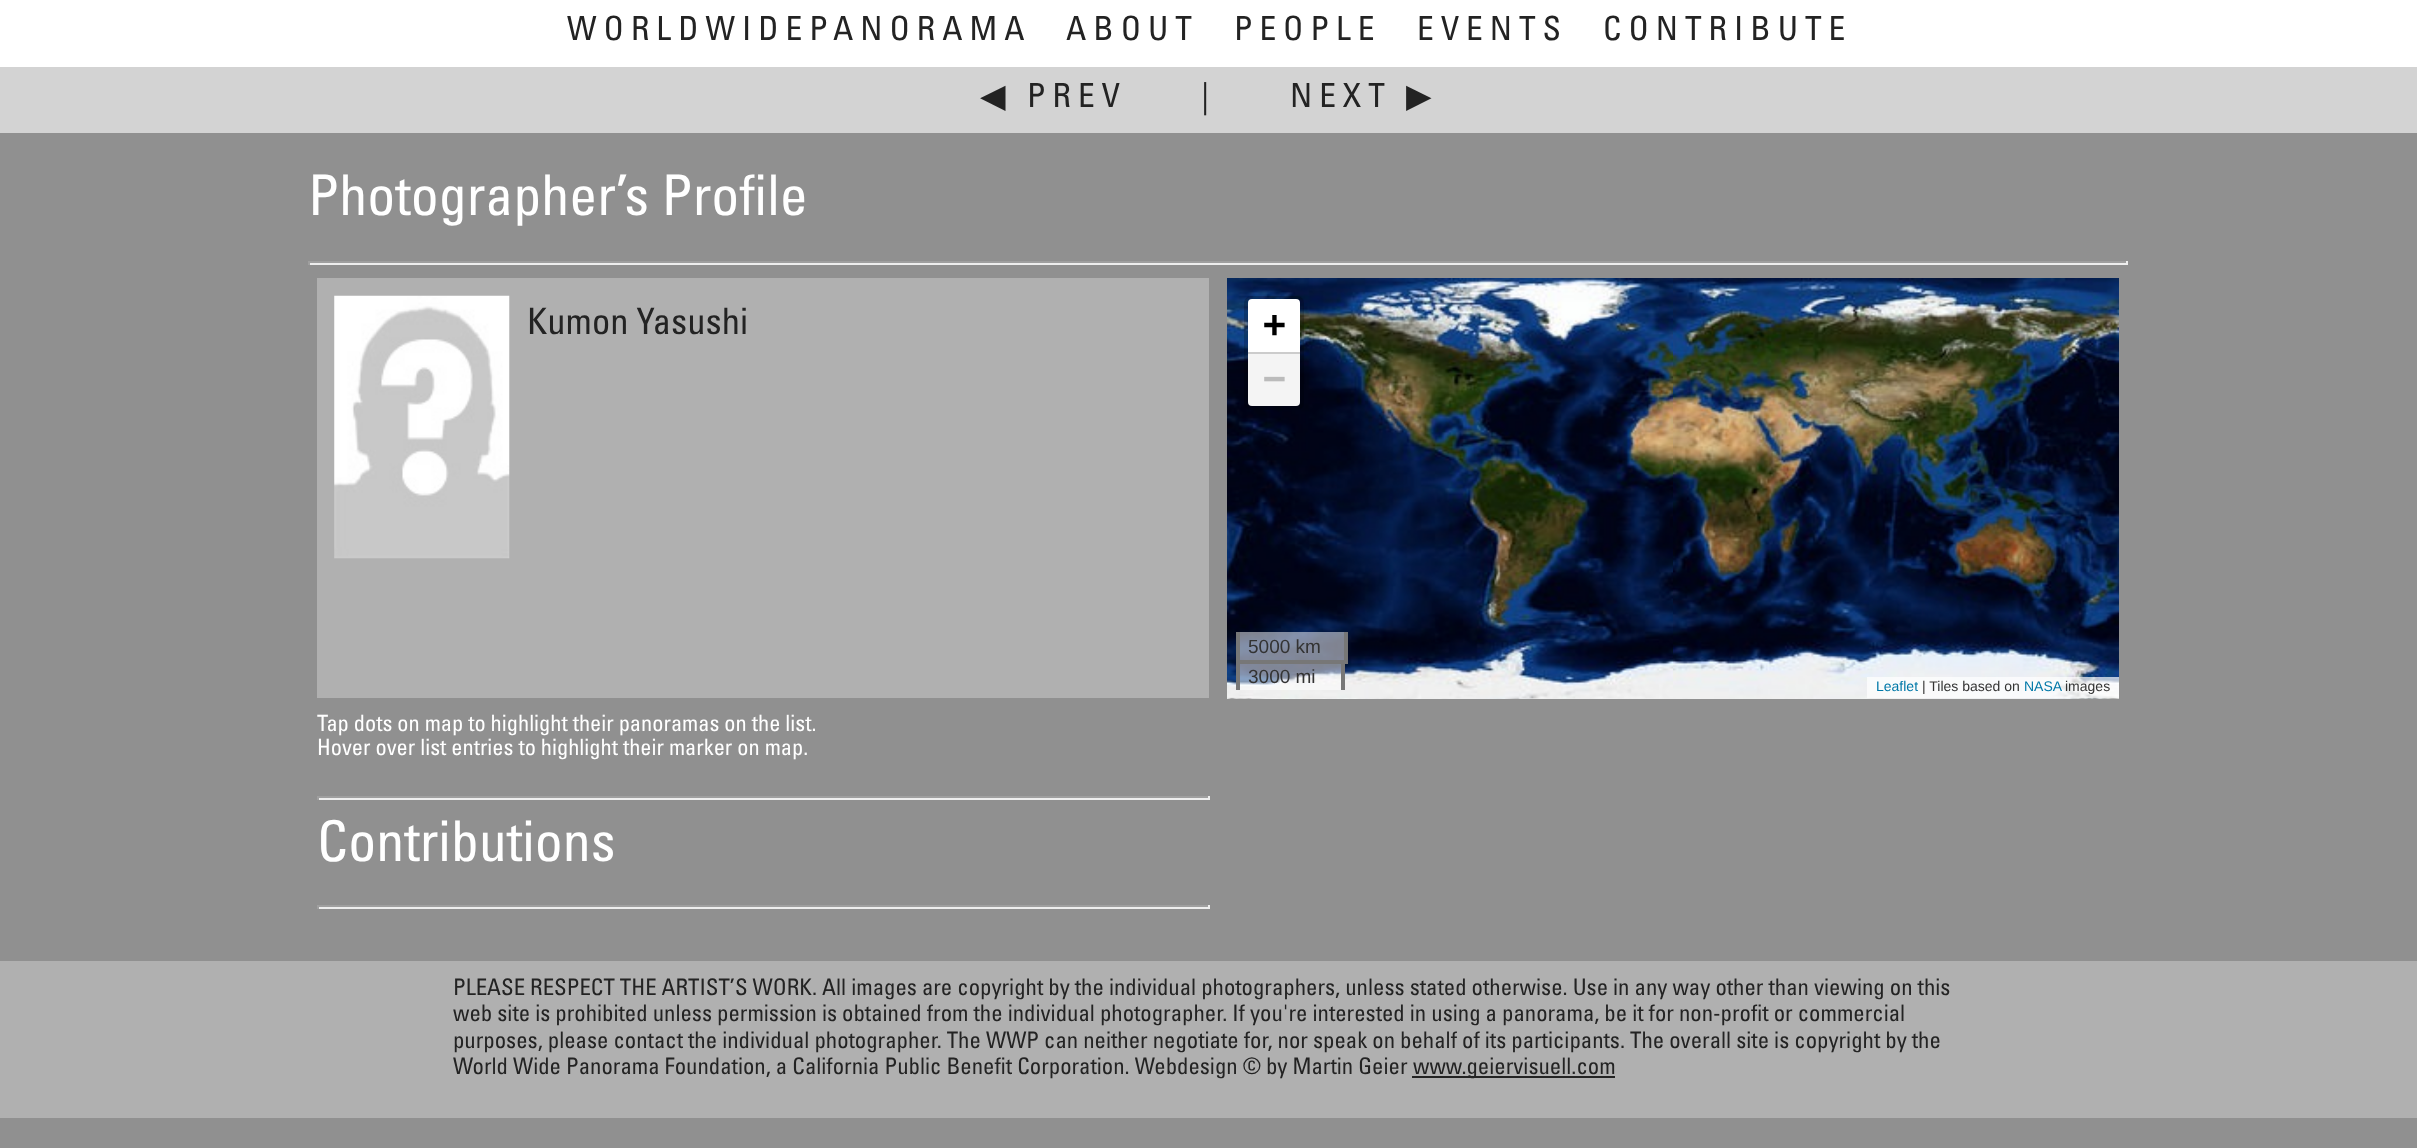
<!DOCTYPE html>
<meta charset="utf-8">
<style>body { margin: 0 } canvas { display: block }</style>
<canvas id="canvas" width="2417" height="1148"></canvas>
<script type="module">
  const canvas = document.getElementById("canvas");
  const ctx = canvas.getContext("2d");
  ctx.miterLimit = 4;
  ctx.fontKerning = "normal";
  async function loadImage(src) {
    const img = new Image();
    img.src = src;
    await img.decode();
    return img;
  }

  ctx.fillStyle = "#909090";
  ctx.fillRect(0, 0, 2417, 1148);
  ctx.fillStyle = "#ffffff";
  ctx.fillRect(0, 0, 2417, 67);
  ctx.letterSpacing = "7px";
  ctx.font = "33.25px Univers";
  ctx.fillStyle = "#232323";
  ctx.fillText("WORLDWIDEPANORAMA", 567, 40);
  ctx.fillText("ABOUT", 1066, 40);
  ctx.fillText("PEOPLE", 1234, 40);
  ctx.fillText("EVENTS", 1417, 40);
  ctx.fillText("CONTRIBUTE", 1603, 40);
  ctx.fillStyle = "#d3d3d3";
  ctx.fillRect(0, 67, 2417, 66);
  ctx.font = "33.25px DejaVu Sans";
  ctx.fillStyle = "#232323";
  ctx.fillText("◀", 980, 107);
  ctx.font = "33.25px Univers";
  ctx.fillText("PREV", 1027, 107);
  ctx.fillText("|", 1201, 107);
  ctx.fillText("NEXT", 1290, 107);
  ctx.font = "33.25px DejaVu Sans";
  ctx.fillText("▶", 1406, 107);
  ctx.letterSpacing = "0px";
  ctx.font = "56px Univers";
  ctx.fillStyle = "#ffffff";
  ctx.fillText("Photographer’s Profile", 308, 215);
  ctx.fillStyle = "#9f9f9f";
  ctx.fillRect(308, 261, 1820, 2);
  ctx.fillStyle = "#eeeeee";
  ctx.fillRect(2126, 261, 2, 4);
  ctx.fillRect(308, 263, 1820, 2);
  ctx.fillStyle = "#9f9f9f";
  ctx.fillRect(308, 261, 2, 4);
  ctx.fillStyle = "#b0b0b0";
  ctx.fillRect(317, 278, 892, 420);
  ctx.drawImage(await loadImage("img1.png"), 334, 295, 176, 264);
  ctx.font = "36.5px Univers";
  ctx.fillStyle = "#232323";
  ctx.fillText("Kumon Yasushi", 527, 334);
  ctx.drawImage(await loadImage("img2.png"), 1227, 278, 446, 421);
  ctx.drawImage(await loadImage("img3.png"), 1673, 278, 446, 421);
  ctx.beginPath();
  ctx.roundRect(1246, 298, 56, 110, 5);
  ctx.strokeStyle = "rgba(0, 0, 0, 0.2)";
  ctx.lineWidth = 4;
  ctx.stroke();
  ctx.fillStyle = "#ffffff";
  ctx.beginPath();
  ctx.roundRect(1248, 299, 52, 55, [4, 4, 0, 0]);
  ctx.fill();
  ctx.fillStyle = "#cccccc";
  ctx.fillRect(1248, 352, 52, 2);
  ctx.font = "bold 38px DejaVu Sans Mono";
  ctx.fillStyle = "#000000";
  ctx.fillText("+", 1263, 337);
  ctx.fillStyle = "#f4f4f4";
  ctx.beginPath();
  ctx.roundRect(1248, 354, 52, 52, [0, 0, 4, 4]);
  ctx.fill();
  ctx.fillStyle = "#bbbbbb";
  ctx.fillText("−", 1263, 391);
  ctx.fillStyle = "rgba(255, 255, 255, 0.5)";
  ctx.fillRect(1240, 632, 104, 28);
  ctx.fillStyle = "#777777";
  ctx.fillRect(1344, 632, 4, 31);
  ctx.fillRect(1345, 660, 3, 4);
  ctx.fillRect(1236, 632, 4, 31);
  ctx.font = "19px Liberation Sans";
  ctx.fillStyle = "#333333";
  ctx.fillText("5000 km", 1248, 653);
  ctx.fillStyle = "rgba(255, 255, 255, 0.5)";
  ctx.fillRect(1240, 664, 101, 26);
  ctx.fillStyle = "#777777";
  ctx.fillRect(1236, 660, 108, 4);
  ctx.fillRect(1341, 660, 4, 30);
  ctx.fillRect(1236, 660, 4, 30);
  ctx.fillStyle = "#333333";
  ctx.fillText("3000 mi", 1248, 683);
  ctx.fillStyle = "rgba(255, 255, 255, 0.7)";
  ctx.fillRect(1867, 677, 252, 21);
  ctx.font = "14px Liberation Sans";
  ctx.fillStyle = "#0078a8";
  ctx.fillText("Leaflet", 1876, 691);
  ctx.fillStyle = "#333333";
  ctx.fillText("| Tiles based on", 1922, 691);
  ctx.fillStyle = "#0078a8";
  ctx.fillText("NASA", 2024, 691);
  ctx.fillStyle = "#333333";
  ctx.fillText("images", 2065, 691);
  ctx.font = "22.4px Univers";
  ctx.fillStyle = "#ffffff";
  ctx.fillText("Tap dots on map to highlight their panoramas on the list.", 317, 731);
  ctx.fillText("Hover over list entries to highlight their marker on map.", 317, 755);
  ctx.fillStyle = "#9f9f9f";
  ctx.fillRect(317, 796, 892, 2);
  ctx.fillStyle = "#eeeeee";
  ctx.fillRect(1208, 796, 2, 4);
  ctx.fillRect(317, 798, 892, 2);
  ctx.fillStyle = "#9f9f9f";
  ctx.fillRect(317, 796, 2, 4);
  ctx.font = "56px Univers";
  ctx.fillStyle = "#ffffff";
  ctx.fillText("Contributions", 317, 861);
  ctx.fillStyle = "#9f9f9f";
  ctx.fillRect(317, 905, 892, 2);
  ctx.fillStyle = "#eeeeee";
  ctx.fillRect(1208, 905, 2, 4);
  ctx.fillRect(317, 907, 892, 2);
  ctx.fillStyle = "#9f9f9f";
  ctx.fillRect(317, 905, 2, 4);
  ctx.fillStyle = "#b0b0b0";
  ctx.fillRect(0, 961, 2417, 157);
  ctx.font = "22.75px Univers";
  ctx.fillStyle = "#232323";
  ctx.fillText("PLEASE RESPECT THE ARTIST’S WORK. All images are copyright by the individual photographers, unless stated otherwise. Use in any way other than viewing on this", 453, 995);
  ctx.fillText("web site is prohibited unless permission is obtained from the individual photographer. If you're interested in using a panorama, be it for non-profit or commercial", 453, 1021);
  ctx.fillText("purposes, please contact the individual photographer. The WWP can neither negotiate for, nor speak on behalf of its participants. The overall site is copyright by the", 453, 1048);
  ctx.fillText("World Wide Panorama Foundation, a California Public Benefit Corporation. Webdesign © by Martin Geier", 453, 1074);
  ctx.fillRect(1412, 1076, 203, 2);
  ctx.fillText("www.geiervisuell.com", 1413, 1074);
</script>
